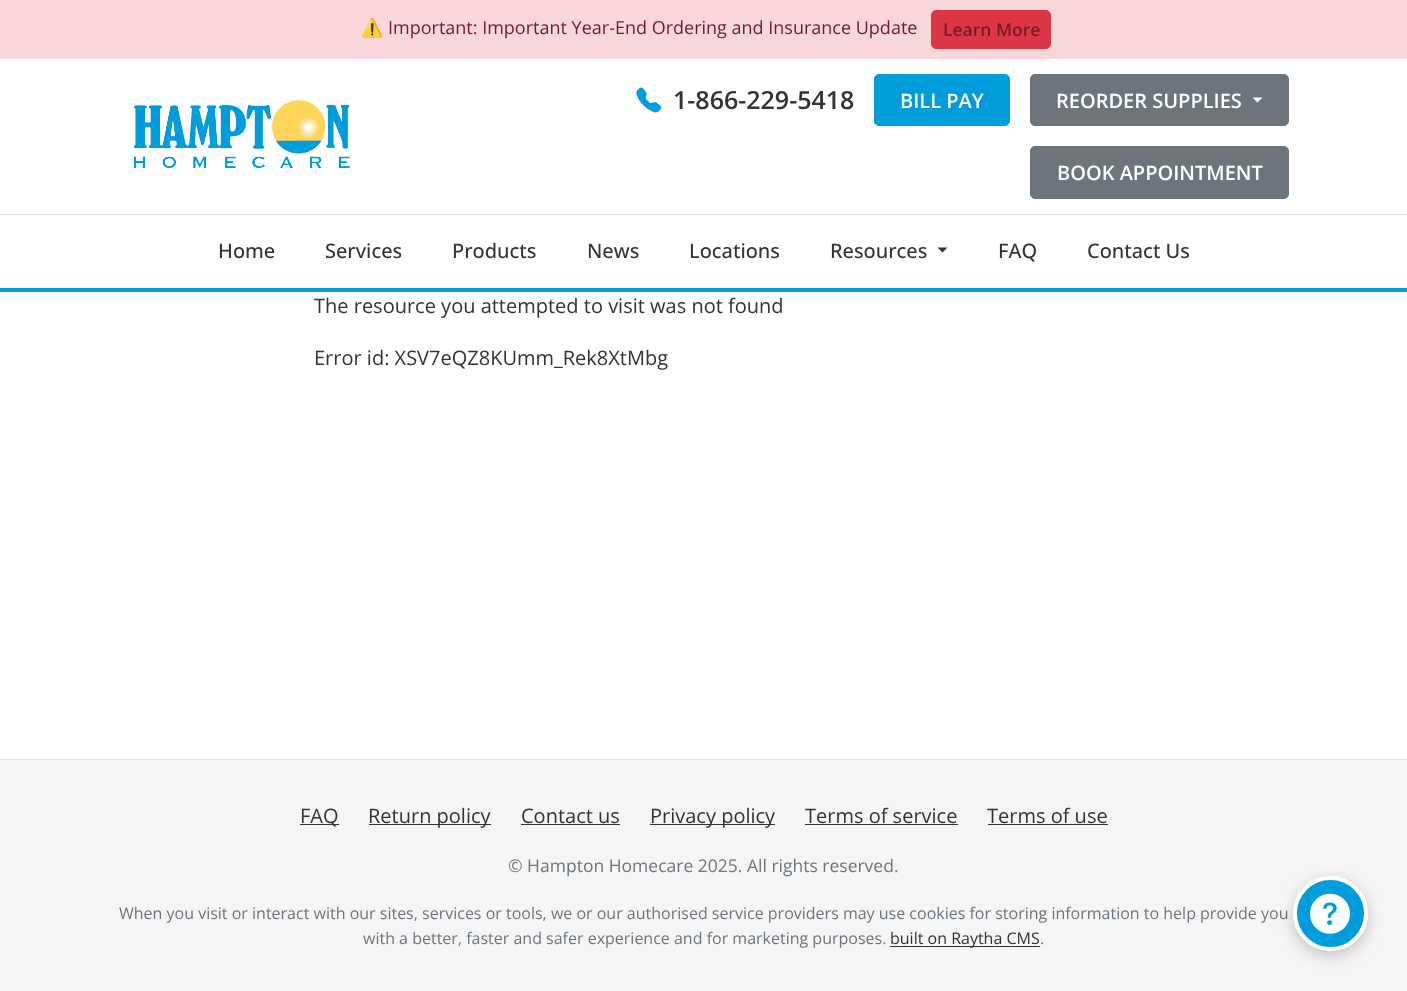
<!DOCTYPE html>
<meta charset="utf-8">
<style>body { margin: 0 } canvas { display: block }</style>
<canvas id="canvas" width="1407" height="991"></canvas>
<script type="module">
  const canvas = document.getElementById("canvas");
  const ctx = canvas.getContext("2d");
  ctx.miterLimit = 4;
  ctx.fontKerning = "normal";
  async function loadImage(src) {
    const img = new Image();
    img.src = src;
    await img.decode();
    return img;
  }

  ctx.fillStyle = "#ffffff";
  ctx.fillRect(0, 0, 1407, 991);
  ctx.fillStyle = "#f8d7da";
  ctx.fillRect(0, 0, 1407, 59);
  ctx.font = "18px Noto Color Emoji";
  ctx.fillStyle = "#721c24";
  ctx.fillText("⚠️", 361, 34);
  ctx.font = "18px Open Sans";
  ctx.fillText("Important: Important Year-End Ordering and Insurance Update", 388, 34);
  ctx.fillStyle = "#dc3545";
  ctx.beginPath();
  ctx.roundRect(931.5, 10.5, 119, 38, 4.5);
  ctx.fill();
  ctx.strokeStyle = "#dc3545";
  ctx.stroke();
  ctx.font = "600 17.5px Open Sans";
  ctx.fillStyle = "#721c24";
  ctx.fillText("Learn More", 943, 36);
  ctx.fillStyle = "#dee2e6";
  ctx.fillRect(0, 214, 1407, 1);
  ctx.drawImage(await loadImage("img1.png"), 133, 100, 217, 69);
  ctx.drawImage(await loadImage("img2.png"), 636, 87, 26, 26);
  ctx.font = "600 25px Open Sans";
  ctx.fillStyle = "#333333";
  ctx.fillText("1-866-229-5418", 673, 109);
  ctx.fillStyle = "#009ddc";
  ctx.beginPath();
  ctx.roundRect(874.5, 74.5, 135, 51, 4.5);
  ctx.fill();
  ctx.strokeStyle = "#009ddc";
  ctx.stroke();
  ctx.font = "600 20px Open Sans";
  ctx.fillStyle = "#ffffff";
  ctx.fillText("BILL PAY", 900, 108);
  ctx.fillStyle = "#6c757d";
  ctx.beginPath();
  ctx.roundRect(1030.5, 74.5, 258, 51, 4.5);
  ctx.fill();
  ctx.strokeStyle = "#6c757d";
  ctx.stroke();
  ctx.fillStyle = "#ffffff";
  ctx.fillText("REORDER SUPPLIES", 1056, 108);
  ctx.beginPath();
  ctx.moveTo(1252.5, 97.5);
  ctx.lineTo(1262.5, 97.5);
  ctx.lineTo(1257.5, 102.5);
  ctx.closePath();
  ctx.fill();
  ctx.fillStyle = "#6c757d";
  ctx.beginPath();
  ctx.roundRect(1030.5, 146.5, 258, 52, 4.5);
  ctx.fill();
  ctx.stroke();
  ctx.fillStyle = "#ffffff";
  ctx.fillText("BOOK APPOINTMENT", 1057, 180);
  ctx.fillStyle = "#009ddc";
  ctx.fillRect(0, 288, 1407, 4);
  ctx.font = "500 20px Open Sans";
  ctx.fillStyle = "#333333";
  ctx.fillText("Home", 218, 258);
  ctx.fillText("Services", 325, 258);
  ctx.fillText("Products", 452, 258);
  ctx.fillText("News", 587, 258);
  ctx.fillText("Locations", 689, 258);
  ctx.fillText("Resources", 830, 258);
  ctx.beginPath();
  ctx.moveTo(937.5, 247.5);
  ctx.lineTo(947.5, 247.5);
  ctx.lineTo(942.5, 252.5);
  ctx.closePath();
  ctx.fill();
  ctx.fillText("FAQ", 998, 258);
  ctx.fillText("Contact Us", 1087, 258);
  ctx.font = "20px Open Sans";
  ctx.fillText("The resource you attempted to visit was not found", 314, 313);
  ctx.fillText("Error id: XSV7eQZ8KUmm_Rek8XtMbg", 314, 365);
  ctx.fillStyle = "#f5f5f5";
  ctx.fillRect(0, 760, 1407, 231);
  ctx.fillStyle = "#dee2e6";
  ctx.fillRect(0, 759, 1407, 1);
  ctx.fillStyle = "#333333";
  ctx.fillRect(300, 824, 39, 1);
  ctx.fillText("FAQ", 300, 823);
  ctx.fillRect(369, 824, 122, 1);
  ctx.fillText("Return policy", 368, 823);
  ctx.fillText("Contact us", 521, 823);
  ctx.fillRect(521, 824, 99, 1);
  ctx.fillRect(650, 824, 125, 1);
  ctx.fillText("Privacy policy", 650, 823);
  ctx.fillText("Terms of service", 805, 823);
  ctx.fillRect(805, 824, 153, 1);
  ctx.fillText("Terms of use", 987, 823);
  ctx.fillRect(988, 824, 120, 1);
  ctx.font = "17.5px Open Sans";
  ctx.fillStyle = "#6c757d";
  ctx.fillText("© Hampton Homecare 2025. All rights reserved.", 508, 872);
  ctx.font = "16px Open Sans";
  ctx.fillText("When you visit or interact with our sites, services or tools, we or our authorised service providers may use cookies for storing information to help provide you", 119, 919);
  ctx.fillText("with a better, faster and safer experience and for marketing purposes.", 363, 944);
  ctx.fillStyle = "#333333";
  ctx.fillRect(890, 946, 150, 1);
  ctx.fillText("built on Raytha CMS", 890, 944);
  ctx.fillStyle = "#6c757d";
  ctx.fillText(".", 1040, 944);
  ctx.fillStyle = "rgba(0, 0, 0, 0.2)";
  ctx.filter = "blur(7.5px)";
  ctx.beginPath();
  ctx.roundRect(1293, 881, 75, 75, 37.5);
  ctx.fill();
  ctx.filter = "none";
  ctx.fillStyle = "#009ddc";
  ctx.beginPath();
  ctx.arc(1330.5, 913.5, 35.5, 0, Math.PI * 2);
  ctx.fill();
  ctx.strokeStyle = "#ffffff";
  ctx.lineWidth = 4;
  ctx.stroke();
  ctx.drawImage(await loadImage("img3.png"), 1310, 893, 40, 41);
</script>
